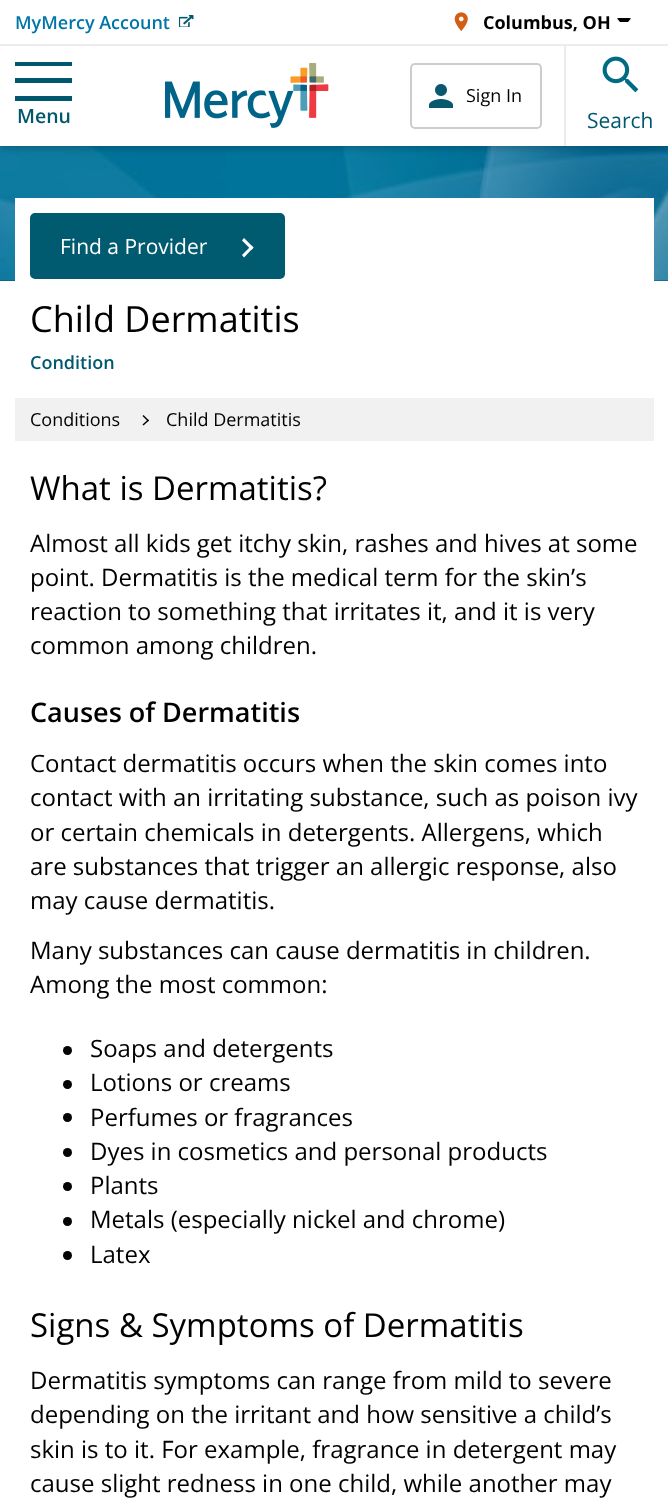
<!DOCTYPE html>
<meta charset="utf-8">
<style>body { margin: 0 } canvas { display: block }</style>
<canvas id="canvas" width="668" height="1512"></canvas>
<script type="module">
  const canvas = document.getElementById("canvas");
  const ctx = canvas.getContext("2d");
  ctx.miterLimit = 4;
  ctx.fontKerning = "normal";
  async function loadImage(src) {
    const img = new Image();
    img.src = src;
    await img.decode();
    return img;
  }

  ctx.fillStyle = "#ffffff";
  ctx.fillRect(0, 0, 668, 1512);
  ctx.fillStyle = "#00586f";
  ctx.fillRect(0, 280, 668, 1);
  ctx.drawImage(await loadImage("img6.png"), 0, 146, 668, 135);
  ctx.fillStyle = "rgba(3, 3, 3, 0.2)";
  ctx.filter = "blur(3px)";
  ctx.beginPath();
  ctx.rect(0, 3, 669, 146);
  ctx.fill();
  ctx.filter = "none";
  ctx.fillStyle = "#ffffff";
  ctx.fillRect(0, 0, 668, 146);
  ctx.fillStyle = "#edeced";
  ctx.fillRect(0, 44, 668, 2);
  ctx.font = "600 18px Open Sans";
  ctx.fillStyle = "#0076a8";
  ctx.fillText("MyMercy Account", 15, 29);
  ctx.drawImage(await loadImage("img1.png"), 179, 15, 15, 12);
  ctx.drawImage(await loadImage("img2.png"), 454, 12, 14, 19);
  ctx.font = "bold 18px Open Sans";
  ctx.fillStyle = "#000000";
  ctx.fillText("Columbus, OH", 483, 29);
  ctx.beginPath();
  ctx.moveTo(619, 18);
  ctx.lineTo(617, 18.5);
  ctx.lineTo(620, 22);
  ctx.lineTo(628, 22);
  ctx.lineTo(631, 18.5);
  ctx.lineTo(629, 18);
  ctx.closePath();
  ctx.fill();
  ctx.fillStyle = "#00586f";
  ctx.beginPath();
  ctx.moveTo(72, 62);
  ctx.lineTo(72, 66);
  ctx.lineTo(15, 66);
  ctx.lineTo(15, 62);
  ctx.closePath();
  ctx.moveTo(72, 78);
  ctx.lineTo(72, 83);
  ctx.lineTo(15, 83);
  ctx.lineTo(15, 78);
  ctx.closePath();
  ctx.moveTo(72, 96);
  ctx.lineTo(72, 101);
  ctx.lineTo(15, 101);
  ctx.lineTo(15, 96);
  ctx.closePath();
  ctx.fill();
  ctx.font = "600 19.5px Open Sans";
  ctx.fillText("Menu", 17, 123);
  ctx.drawImage(await loadImage("img3.png"), 165, 63, 164, 65);
  ctx.beginPath();
  ctx.roundRect(411, 64, 130, 64, 4);
  ctx.strokeStyle = "#cccccc";
  ctx.lineWidth = 2;
  ctx.stroke();
  ctx.drawImage(await loadImage("img4.png"), 429, 84, 24, 24);
  ctx.font = "18px Open Sans";
  ctx.fillStyle = "#000000";
  ctx.fillText("Sign In", 466, 102);
  ctx.fillStyle = "#edeced";
  ctx.fillRect(564, 45, 2, 101);
  ctx.drawImage(await loadImage("img5.png"), 602, 56, 37, 37);
  ctx.font = "21px Open Sans";
  ctx.fillStyle = "#00586f";
  ctx.fillText("Search", 587, 128);
  ctx.fillStyle = "#ffffff";
  ctx.fillRect(15, 198, 639, 83);
  ctx.fillStyle = "#005a70";
  ctx.beginPath();
  ctx.roundRect(31, 214, 253, 64, 4);
  ctx.fill();
  ctx.strokeStyle = "#005a70";
  ctx.stroke();
  ctx.fillStyle = "#ffffff";
  ctx.fillText("Find a Provider", 60, 254);
  ctx.beginPath();
  ctx.moveTo(244, 238);
  ctx.lineTo(253.5, 247.5);
  ctx.lineTo(251.5, 250);
  ctx.lineTo(242, 240.5);
  ctx.closePath();
  ctx.fill();
  ctx.beginPath();
  ctx.moveTo(251.5, 245.5);
  ctx.lineTo(253.5, 247.5);
  ctx.lineTo(244, 257.5);
  ctx.lineTo(242, 255);
  ctx.closePath();
  ctx.fill();
  ctx.font = "36px Open Sans";
  ctx.fillStyle = "#000000";
  ctx.fillText("Child Dermatitis", 30, 332);
  ctx.font = "600 18px Open Sans";
  ctx.fillStyle = "#00586f";
  ctx.fillText("Condition", 30, 369);
  ctx.fillStyle = "#f1f1f1";
  ctx.fillRect(15, 398, 639, 43);
  ctx.font = "18px Open Sans";
  ctx.fillStyle = "#000000";
  ctx.fillText("Conditions", 30, 426);
  ctx.beginPath();
  ctx.moveTo(143.5, 415);
  ctx.lineTo(149, 420.5);
  ctx.lineTo(148, 421.5);
  ctx.lineTo(142.5, 416);
  ctx.closePath();
  ctx.fill();
  ctx.beginPath();
  ctx.moveTo(148, 419.5);
  ctx.lineTo(149, 420.5);
  ctx.lineTo(143.5, 425.5);
  ctx.lineTo(142.5, 424.5);
  ctx.closePath();
  ctx.fill();
  ctx.fillText("Child Dermatitis", 166, 426);
  ctx.font = "33px Open Sans";
  ctx.fillText("What is Dermatitis?", 30, 500);
  ctx.font = "24px Open Sans";
  ctx.fillText("Almost all kids get itchy skin, rashes and hives at some", 30, 552);
  ctx.fillText("point. Dermatitis is the medical term for the skin’s", 30, 586);
  ctx.fillText("reaction to something that irritates it, and it is very", 30, 620);
  ctx.fillText("common among children.", 30, 654);
  ctx.font = "600 27px Open Sans";
  ctx.fillText("Causes of Dermatitis", 30, 722);
  ctx.font = "24px Open Sans";
  ctx.fillText("Contact dermatitis occurs when the skin comes into", 30, 772);
  ctx.fillText("contact with an irritating substance, such as poison ivy", 30, 806);
  ctx.fillText("or certain chemicals in detergents. Allergens, which", 30, 841);
  ctx.fillText("are substances that trigger an allergic response, also", 30, 875);
  ctx.fillText("may cause dermatitis.", 30, 909);
  ctx.fillText("Many substances can cause dermatitis in children.", 30, 959);
  ctx.fillText("Among the most common:", 30, 993);
  ctx.fillStyle = "#030303";
  ctx.beginPath();
  ctx.arc(67.5, 1050.5, 4.5, 0, Math.PI * 2);
  ctx.fill();
  ctx.fillStyle = "#000000";
  ctx.fillText("Soaps and detergents", 90, 1057);
  ctx.fillStyle = "#030303";
  ctx.beginPath();
  ctx.arc(67.5, 1084.5, 4.5, 0, Math.PI * 2);
  ctx.fill();
  ctx.fillStyle = "#000000";
  ctx.fillText("Lotions or creams", 90, 1091);
  ctx.fillStyle = "#030303";
  ctx.beginPath();
  ctx.arc(67.5, 1117.5, 4.5, 0, Math.PI * 2);
  ctx.fill();
  ctx.fillStyle = "#000000";
  ctx.fillText("Perfumes or fragrances", 90, 1126);
  ctx.fillStyle = "#030303";
  ctx.beginPath();
  ctx.arc(67.5, 1152.5, 4.5, 0, Math.PI * 2);
  ctx.fill();
  ctx.fillStyle = "#000000";
  ctx.fillText("Dyes in cosmetics and personal products", 90, 1160);
  ctx.fillStyle = "#030303";
  ctx.beginPath();
  ctx.arc(67.5, 1186.5, 4.5, 0, Math.PI * 2);
  ctx.fill();
  ctx.fillStyle = "#000000";
  ctx.fillText("Plants", 90, 1194);
  ctx.fillStyle = "#030303";
  ctx.beginPath();
  ctx.arc(67.5, 1221.5, 4.5, 0, Math.PI * 2);
  ctx.fill();
  ctx.fillStyle = "#000000";
  ctx.fillText("Metals (especially nickel and chrome)", 90, 1228);
  ctx.fillStyle = "#030303";
  ctx.beginPath();
  ctx.arc(67.5, 1255.5, 4.5, 0, Math.PI * 2);
  ctx.fill();
  ctx.fillStyle = "#000000";
  ctx.fillText("Latex", 90, 1263);
  ctx.font = "33px Open Sans";
  ctx.fillText("Signs & Symptoms of Dermatitis", 30, 1337);
  ctx.font = "24px Open Sans";
  ctx.fillText("Dermatitis symptoms can range from mild to severe", 30, 1389);
  ctx.fillText("depending on the irritant and how sensitive a child’s", 30, 1423);
  ctx.fillText("skin is to it. For example, fragrance in detergent may", 30, 1458);
  ctx.fillText("cause slight redness in one child, while another may", 30, 1492);
</script>
